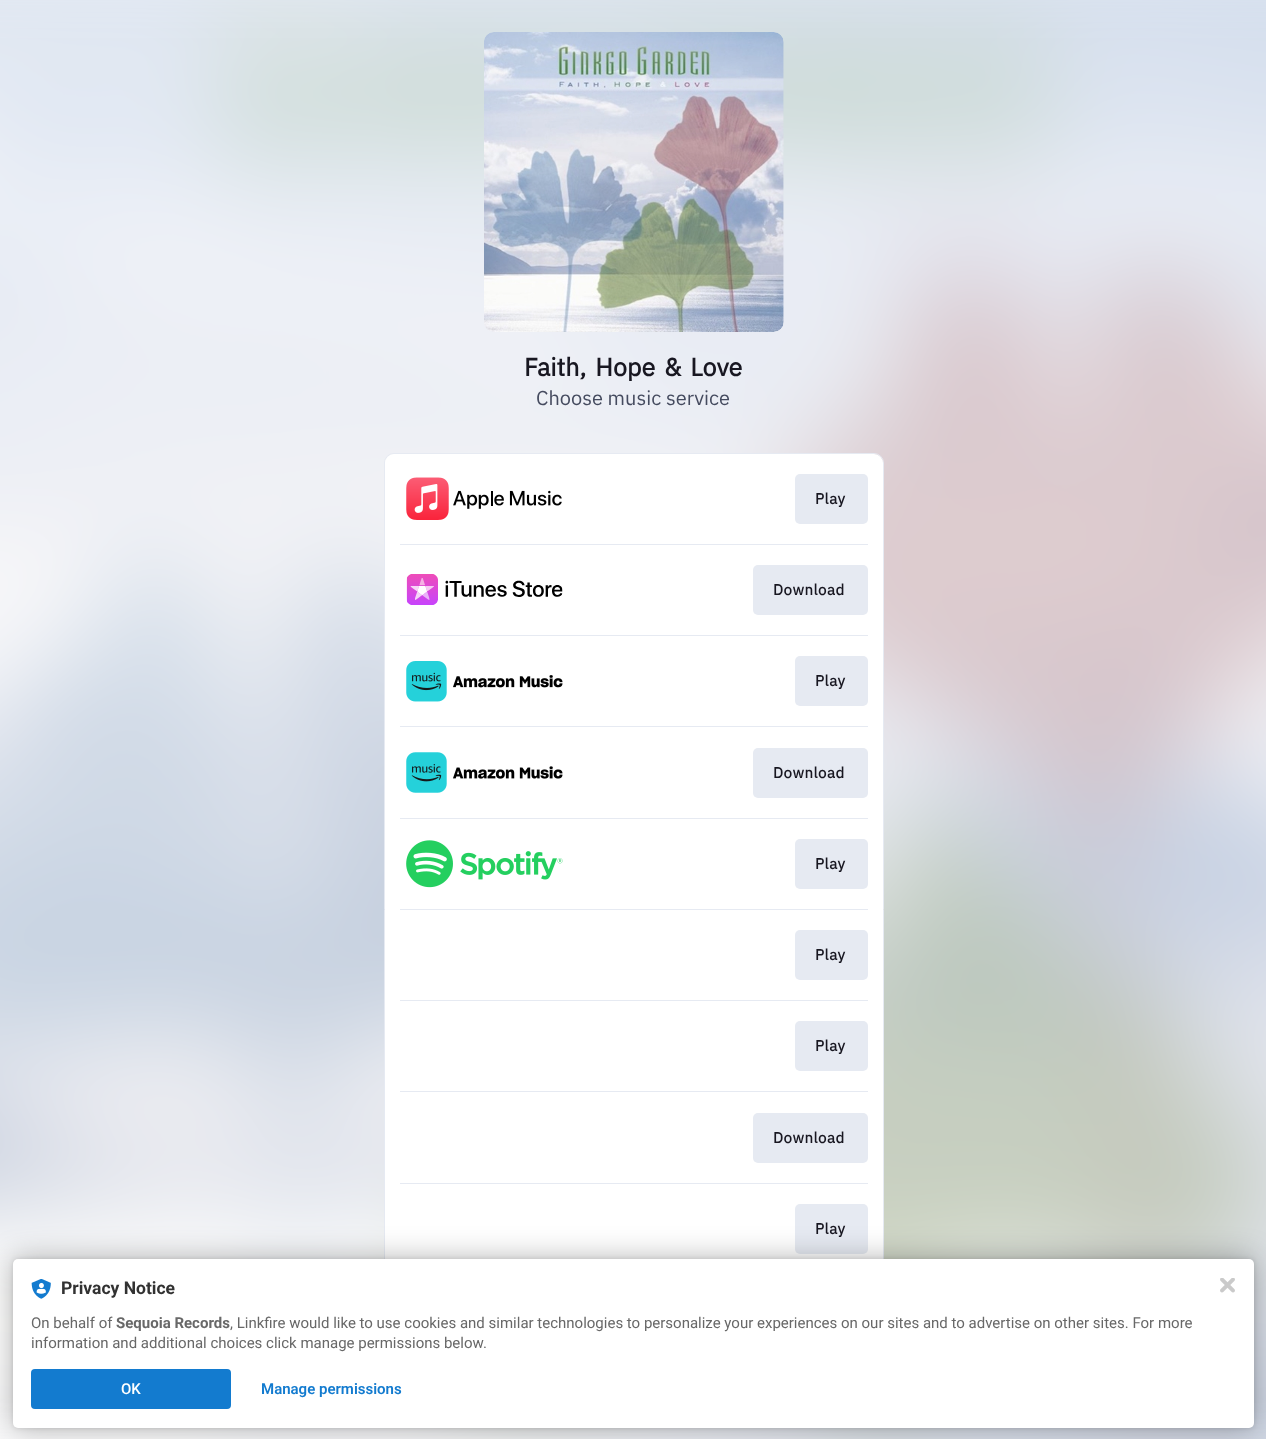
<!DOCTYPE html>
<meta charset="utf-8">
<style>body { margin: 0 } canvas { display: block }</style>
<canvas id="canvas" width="1266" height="1439"></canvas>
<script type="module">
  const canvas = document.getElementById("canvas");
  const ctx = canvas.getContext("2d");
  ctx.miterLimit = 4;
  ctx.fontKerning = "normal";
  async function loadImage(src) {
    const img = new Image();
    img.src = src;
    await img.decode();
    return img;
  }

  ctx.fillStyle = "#ffffff";
  ctx.fillRect(0, 0, 1266, 1439);
  ctx.drawImage(await loadImage("img1.png"), 0, 0, 1266, 1439);
  ctx.drawImage(await loadImage("img2.png"), 484, 32, 300, 300);
  ctx.wordSpacing = "3px";
  ctx.font = "bold 25px IBM Plex Sans";
  ctx.fillStyle = "#181721";
  ctx.fillText("Faith, Hope & Love", 524, 376);
  ctx.wordSpacing = "0px";
  ctx.font = "20px IBM Plex Sans";
  ctx.fillStyle = "#454b5f";
  ctx.fillText("Choose music service", 536, 405);
  ctx.beginPath();
  ctx.roundRect(384.5, 453.5, 499, 912, 9.5);
  ctx.strokeStyle = "#e6eaf2";
  ctx.stroke();
  ctx.fillStyle = "#ffffff";
  ctx.beginPath();
  ctx.roundRect(385, 454, 498, 911, 9);
  ctx.fill();
  ctx.drawImage(await loadImage("img3.png"), 406, 477, 156, 43);
  ctx.fillStyle = "#e6eaf2";
  ctx.beginPath();
  ctx.roundRect(795, 474, 73, 50, 5);
  ctx.fill();
  ctx.letterSpacing = "0.5px";
  ctx.font = "bold 15px IBM Plex Sans";
  ctx.fillStyle = "#181721";
  ctx.fillText("Play", 815, 504);
  ctx.fillStyle = "#e6eaf2";
  ctx.fillRect(400, 544, 468, 1);
  ctx.drawImage(await loadImage("img4.png"), 406, 574, 157, 31);
  ctx.beginPath();
  ctx.roundRect(753, 565, 115, 50, 5);
  ctx.fill();
  ctx.fillStyle = "#181721";
  ctx.fillText("Download", 773, 595);
  ctx.fillStyle = "#e6eaf2";
  ctx.fillRect(400, 635, 468, 1);
  ctx.drawImage(await loadImage("img5.png"), 406, 661, 157, 41);
  ctx.beginPath();
  ctx.roundRect(795, 656, 73, 50, 5);
  ctx.fill();
  ctx.fillStyle = "#181721";
  ctx.fillText("Play", 815, 686);
  ctx.fillStyle = "#e6eaf2";
  ctx.fillRect(400, 726, 468, 1);
  ctx.drawImage(await loadImage("img6.png"), 406, 752, 157, 41);
  ctx.beginPath();
  ctx.roundRect(753, 748, 115, 50, 5);
  ctx.fill();
  ctx.fillStyle = "#181721";
  ctx.fillText("Download", 773, 778);
  ctx.fillStyle = "#e6eaf2";
  ctx.fillRect(400, 818, 468, 1);
  ctx.drawImage(await loadImage("img7.png"), 406, 840, 157, 48);
  ctx.beginPath();
  ctx.roundRect(795, 839, 73, 50, 5);
  ctx.fill();
  ctx.fillStyle = "#181721";
  ctx.fillText("Play", 815, 869);
  ctx.fillStyle = "#e6eaf2";
  ctx.fillRect(400, 909, 468, 1);
  ctx.beginPath();
  ctx.roundRect(795, 930, 73, 50, 5);
  ctx.fill();
  ctx.fillStyle = "#181721";
  ctx.fillText("Play", 815, 960);
  ctx.fillStyle = "#e6eaf2";
  ctx.fillRect(400, 1000, 468, 1);
  ctx.beginPath();
  ctx.roundRect(795, 1021, 73, 50, 5);
  ctx.fill();
  ctx.fillStyle = "#181721";
  ctx.fillText("Play", 815, 1051);
  ctx.fillStyle = "#e6eaf2";
  ctx.fillRect(400, 1091, 468, 1);
  ctx.beginPath();
  ctx.roundRect(753, 1113, 115, 50, 5);
  ctx.fill();
  ctx.fillStyle = "#181721";
  ctx.fillText("Download", 773, 1143);
  ctx.fillStyle = "#e6eaf2";
  ctx.fillRect(400, 1183, 468, 1);
  ctx.beginPath();
  ctx.roundRect(795, 1204, 73, 50, 5);
  ctx.fill();
  ctx.fillStyle = "#181721";
  ctx.fillText("Play", 815, 1234);
  ctx.fillStyle = "rgba(0, 0, 0, 0.12)";
  ctx.filter = "blur(2.5px)";
  ctx.beginPath();
  ctx.roundRect(13, 1259, 1241, 169, 5);
  ctx.fill();
  ctx.filter = "none";
  ctx.fillStyle = "rgba(0, 0, 0, 0.3)";
  ctx.filter = "blur(15px)";
  ctx.beginPath();
  ctx.roundRect(13, 1259, 1241, 169, 5);
  ctx.fill();
  ctx.filter = "none";
  ctx.fillStyle = "#ffffff";
  ctx.beginPath();
  ctx.roundRect(13, 1259, 1241, 169, 5);
  ctx.fill();
  ctx.drawImage(await loadImage("img8.png"), 31, 1279, 20, 20);
  ctx.letterSpacing = "0px";
  ctx.font = "bold 17.5px Roboto";
  ctx.fillStyle = "#323232";
  ctx.fillText("Privacy Notice", 61, 1294);
  ctx.font = "15px Roboto";
  ctx.fillStyle = "#686868";
  ctx.fillText("On behalf of", 31, 1328);
  ctx.font = "bold 15px Roboto";
  ctx.fillText("Sequoia Records", 116, 1328);
  ctx.font = "15px Roboto";
  ctx.fillText(", Linkfire would like to use cookies and similar technologies to personalize your experiences on our sites and to advertise on other sites. For more", 230, 1328);
  ctx.fillText("information and additional choices click manage permissions below.", 31, 1348);
  ctx.fillStyle = "#137bcf";
  ctx.beginPath();
  ctx.roundRect(31, 1369, 200, 40, 4);
  ctx.fill();
  ctx.font = "500 15px Roboto";
  ctx.fillStyle = "#ffffff";
  ctx.fillText("OK", 121, 1394);
  ctx.font = "600 15px Roboto";
  ctx.fillStyle = "#137bcf";
  ctx.fillText("Manage permissions", 261, 1394);
  ctx.drawImage(await loadImage("img9.png"), 1220, 1278, 15, 15);
</script>
